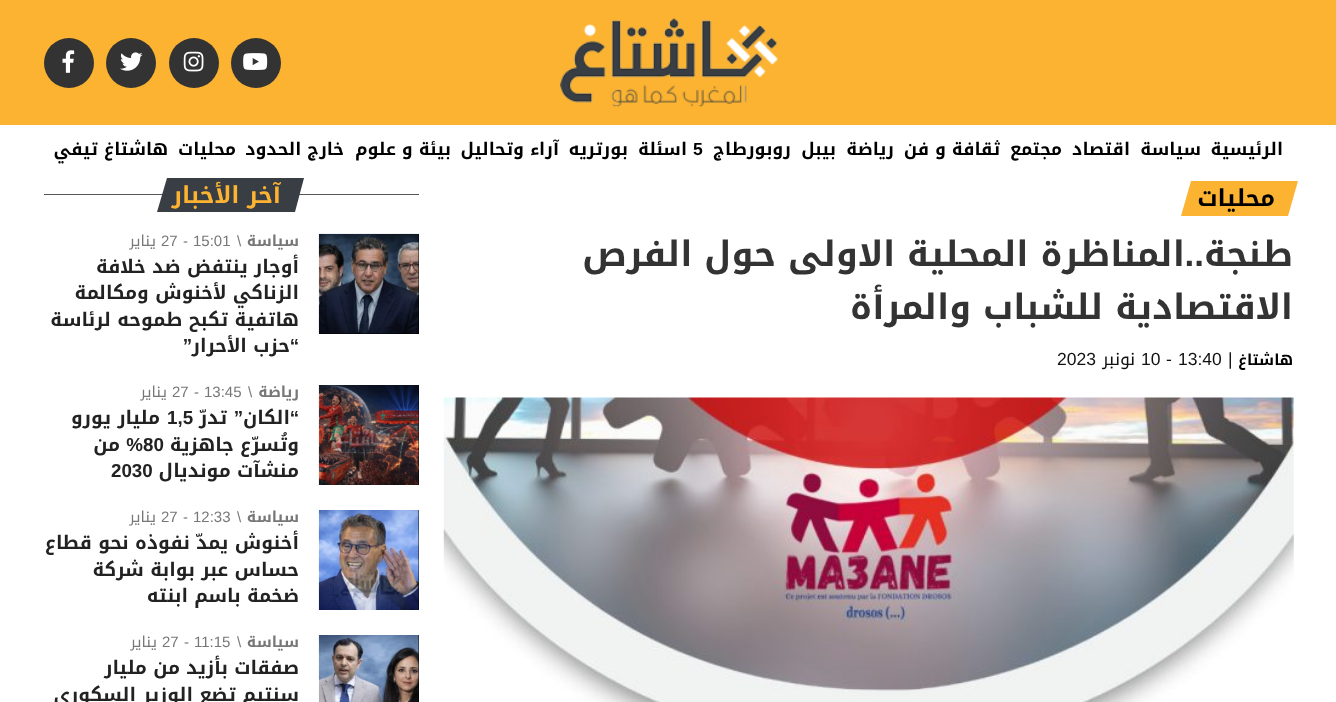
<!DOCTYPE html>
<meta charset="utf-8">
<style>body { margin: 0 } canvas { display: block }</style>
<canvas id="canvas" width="1336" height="702"></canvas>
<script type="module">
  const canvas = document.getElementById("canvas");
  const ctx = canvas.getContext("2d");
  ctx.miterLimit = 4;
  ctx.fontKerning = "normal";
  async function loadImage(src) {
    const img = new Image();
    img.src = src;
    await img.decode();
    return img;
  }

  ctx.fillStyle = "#ffffff";
  ctx.fillRect(0, 0, 1336, 702);
  ctx.fillStyle = "#fbb331";
  ctx.fillRect(0, 0, 1336, 125);
  ctx.drawImage(await loadImage("img1.png"), 560, 18, 218, 89);
  ctx.fillStyle = "#333333";
  ctx.beginPath();
  ctx.arc(256, 63, 25, 0, Math.PI * 2);
  ctx.fill();
  ctx.drawImage(await loadImage("img2.png"), 243, 53, 25, 17);
  ctx.beginPath();
  ctx.arc(194, 63, 25, 0, Math.PI * 2);
  ctx.fill();
  ctx.drawImage(await loadImage("img3.png"), 183, 51, 21, 21);
  ctx.beginPath();
  ctx.arc(131, 63, 25, 0, Math.PI * 2);
  ctx.fill();
  ctx.drawImage(await loadImage("img4.png"), 120, 52, 23, 19);
  ctx.beginPath();
  ctx.arc(69, 63, 25, 0, Math.PI * 2);
  ctx.fill();
  ctx.drawImage(await loadImage("img5.png"), 62, 50, 13, 23);
  ctx.direction = "rtl";
  ctx.font = "bold 17.5px Noto Kufi Arabic";
  ctx.fillStyle = "#000000";
  ctx.fillText("الرئيسية", 1283, 155);
  ctx.fillText("سياسة", 1201, 155);
  ctx.fillText("اقتصاد", 1130, 155);
  ctx.fillText("مجتمع", 1062, 155);
  ctx.fillText("ثقافة و فن", 1000, 155);
  ctx.fillText("رياضة", 894, 155);
  ctx.fillText("بيبل", 836, 155);
  ctx.fillText("روبورطاج", 791, 155);
  ctx.direction = "ltr";
  ctx.font = "bold 17.5px Liberation Sans";
  ctx.fillText("5", 693, 155);
  ctx.direction = "rtl";
  ctx.font = "bold 17.5px Noto Kufi Arabic";
  ctx.fillText("اسئلة", 687, 155);
  ctx.fillText("بورتريه", 628, 155);
  ctx.fillText("آراء وتحاليل", 559, 155);
  ctx.fillText("بيئة و علوم", 451, 155);
  ctx.fillText("خارج الحدود", 344, 155);
  ctx.fillText("محليات", 236, 155);
  ctx.fillText("هاشتاغ تيفي", 168, 155);
  ctx.fillStyle = "#fbb331";
  ctx.beginPath();
  ctx.moveTo(1191, 181);
  ctx.lineTo(1298, 181);
  ctx.lineTo(1288, 216);
  ctx.lineTo(1181, 216);
  ctx.closePath();
  ctx.fill();
  ctx.letterSpacing = "-0.5px";
  ctx.font = "bold 23.5px Noto Kufi Arabic";
  ctx.fillStyle = "#000000";
  ctx.fillText("محليات", 1275, 206);
  ctx.letterSpacing = "0px";
  ctx.font = "bold 35px Noto Kufi Arabic";
  ctx.fillStyle = "#333333";
  ctx.fillText("طنجة", 1293, 266);
  ctx.font = "bold 35px Liberation Sans";
  ctx.fillText("..", 1204, 266);
  ctx.font = "bold 35px Noto Kufi Arabic";
  ctx.fillText("المناظرة المحلية الاولى حول الفرص", 1185, 266);
  ctx.fillText("الاقتصادية للشباب والمرأة", 1293, 319);
  ctx.font = "bold 15px Noto Kufi Arabic";
  ctx.fillStyle = "#000000";
  ctx.fillText("هاشتاغ", 1293, 365);
  ctx.direction = "ltr";
  ctx.font = "17.5px Liberation Sans";
  ctx.fillStyle = "#111111";
  ctx.fillText("|", 1228, 365);
  ctx.fillText("13:40", 1178, 365);
  ctx.fillText("-", 1166, 365);
  ctx.fillText("10", 1141, 365);
  ctx.direction = "rtl";
  ctx.font = "17.5px Noto Kufi Arabic";
  ctx.fillText("نونبر", 1135, 365);
  ctx.direction = "ltr";
  ctx.font = "17.5px Liberation Sans";
  ctx.fillText("2023", 1057, 365);
  ctx.drawImage(await loadImage("img6.png"), 443, 397, 851, 305);
  ctx.fillStyle = "#555555";
  ctx.fillRect(44, 194, 375, 1);
  ctx.fillStyle = "#383e43";
  ctx.beginPath();
  ctx.moveTo(167, 178);
  ctx.lineTo(304, 178);
  ctx.lineTo(295, 212);
  ctx.lineTo(157, 212);
  ctx.closePath();
  ctx.fill();
  ctx.letterSpacing = "-0.25px";
  ctx.direction = "rtl";
  ctx.font = "bold 23.5px Noto Kufi Arabic";
  ctx.fillStyle = "#fbb331";
  ctx.fillText("آخر الأخبار", 281, 203);
  ctx.fillStyle = "#000000";
  ctx.fillRect(319, 234, 100, 100);
  ctx.drawImage(await loadImage("img7.png"), 318, 233, 101, 101);
  ctx.letterSpacing = "0px";
  ctx.font = "bold 15px Noto Kufi Arabic";
  ctx.fillStyle = "#777777";
  ctx.fillText("سياسة", 299, 246);
  ctx.direction = "ltr";
  ctx.font = "15px Liberation Sans";
  ctx.fillText("\\", 237, 246);
  ctx.fillText("15:01", 193, 246);
  ctx.fillText("-", 183, 246);
  ctx.fillText("27", 161, 246);
  ctx.direction = "rtl";
  ctx.font = "15px Noto Kufi Arabic";
  ctx.fillText("يناير", 156, 246);
  ctx.font = "bold 18.75px Noto Kufi Arabic";
  ctx.fillStyle = "#222222";
  ctx.fillText("أوجار ينتفض ضد خلافة", 299, 273);
  ctx.fillText("الزناكي لأخنوش ومكالمة", 299, 299);
  ctx.fillText("هاتفية تكبح طموحه لرئاسة", 299, 326);
  ctx.font = "bold 18.75px Liberation Sans";
  ctx.fillText("“", 299, 352);
  ctx.font = "bold 18.75px Noto Kufi Arabic";
  ctx.fillText("حزب الأحرار", 290, 352);
  ctx.font = "bold 18.75px Liberation Sans";
  ctx.fillText("”", 192, 352);
  ctx.fillStyle = "#000000";
  ctx.fillRect(418, 385, 1, 100);
  ctx.drawImage(await loadImage("img8.png"), 318, 385, 101, 100);
  ctx.font = "bold 15px Noto Kufi Arabic";
  ctx.fillStyle = "#777777";
  ctx.fillText("رياضة", 299, 397);
  ctx.direction = "ltr";
  ctx.font = "15px Liberation Sans";
  ctx.fillText("\\", 248, 397);
  ctx.fillText("13:45", 204, 397);
  ctx.fillText("-", 194, 397);
  ctx.fillText("27", 172, 397);
  ctx.direction = "rtl";
  ctx.font = "15px Noto Kufi Arabic";
  ctx.fillText("يناير", 167, 397);
  ctx.font = "bold 18.75px Liberation Sans";
  ctx.fillStyle = "#222222";
  ctx.fillText("“", 299, 424);
  ctx.font = "bold 18.75px Noto Kufi Arabic";
  ctx.fillText("الكان", 290, 424);
  ctx.font = "bold 18.75px Liberation Sans";
  ctx.fillText("”", 243, 424);
  ctx.font = "bold 18.75px Noto Kufi Arabic";
  ctx.fillText("تدرّ", 227, 424);
  ctx.direction = "ltr";
  ctx.font = "bold 18.75px Liberation Sans";
  ctx.fillText("1,5", 167, 424);
  ctx.direction = "rtl";
  ctx.font = "bold 18.75px Noto Kufi Arabic";
  ctx.fillText("مليار يورو", 160, 424);
  ctx.fillText("وتُسرّع جاهزية", 299, 451);
  ctx.direction = "ltr";
  ctx.font = "bold 18.75px Liberation Sans";
  ctx.fillText("80", 143, 451);
  ctx.direction = "rtl";
  ctx.fillText("%", 143, 451);
  ctx.font = "bold 18.75px Noto Kufi Arabic";
  ctx.fillText("من", 120, 451);
  ctx.fillText("منشآت مونديال", 299, 477);
  ctx.direction = "ltr";
  ctx.font = "bold 18.75px Liberation Sans";
  ctx.fillText("2030", 111, 477);
  ctx.fillStyle = "#000000";
  ctx.fillRect(418, 510, 1, 100);
  ctx.drawImage(await loadImage("img9.png"), 318, 510, 101, 100);
  ctx.direction = "rtl";
  ctx.font = "bold 15px Noto Kufi Arabic";
  ctx.fillStyle = "#777777";
  ctx.fillText("سياسة", 299, 522);
  ctx.direction = "ltr";
  ctx.font = "15px Liberation Sans";
  ctx.fillText("\\", 237, 522);
  ctx.fillText("12:33", 193, 522);
  ctx.fillText("-", 183, 522);
  ctx.fillText("27", 161, 522);
  ctx.direction = "rtl";
  ctx.font = "15px Noto Kufi Arabic";
  ctx.fillText("يناير", 156, 522);
  ctx.font = "bold 18.75px Noto Kufi Arabic";
  ctx.fillStyle = "#222222";
  ctx.fillText("أخنوش يمدّ نفوذه نحو قطاع", 299, 549);
  ctx.fillText("حساس عبر بوابة شركة", 299, 576);
  ctx.fillText("ضخمة باسم ابنته", 299, 602);
  ctx.fillStyle = "#000000";
  ctx.fillRect(418, 635, 1, 67);
  ctx.drawImage(await loadImage("img10.png"), 318, 635, 101, 67);
  ctx.font = "bold 15px Noto Kufi Arabic";
  ctx.fillStyle = "#777777";
  ctx.fillText("سياسة", 299, 647);
  ctx.direction = "ltr";
  ctx.font = "15px Liberation Sans";
  ctx.fillText("\\", 237, 647);
  ctx.fillText("11:15", 194, 647);
  ctx.fillText("-", 184, 647);
  ctx.fillText("27", 162, 647);
  ctx.direction = "rtl";
  ctx.font = "15px Noto Kufi Arabic";
  ctx.fillText("يناير", 157, 647);
  ctx.font = "bold 18.75px Noto Kufi Arabic";
  ctx.fillStyle = "#222222";
  ctx.fillText("صفقات بأزيد من مليار", 299, 674);
  ctx.fillText("سنتيم تضع الوزير السكوري", 299, 701);
</script>
